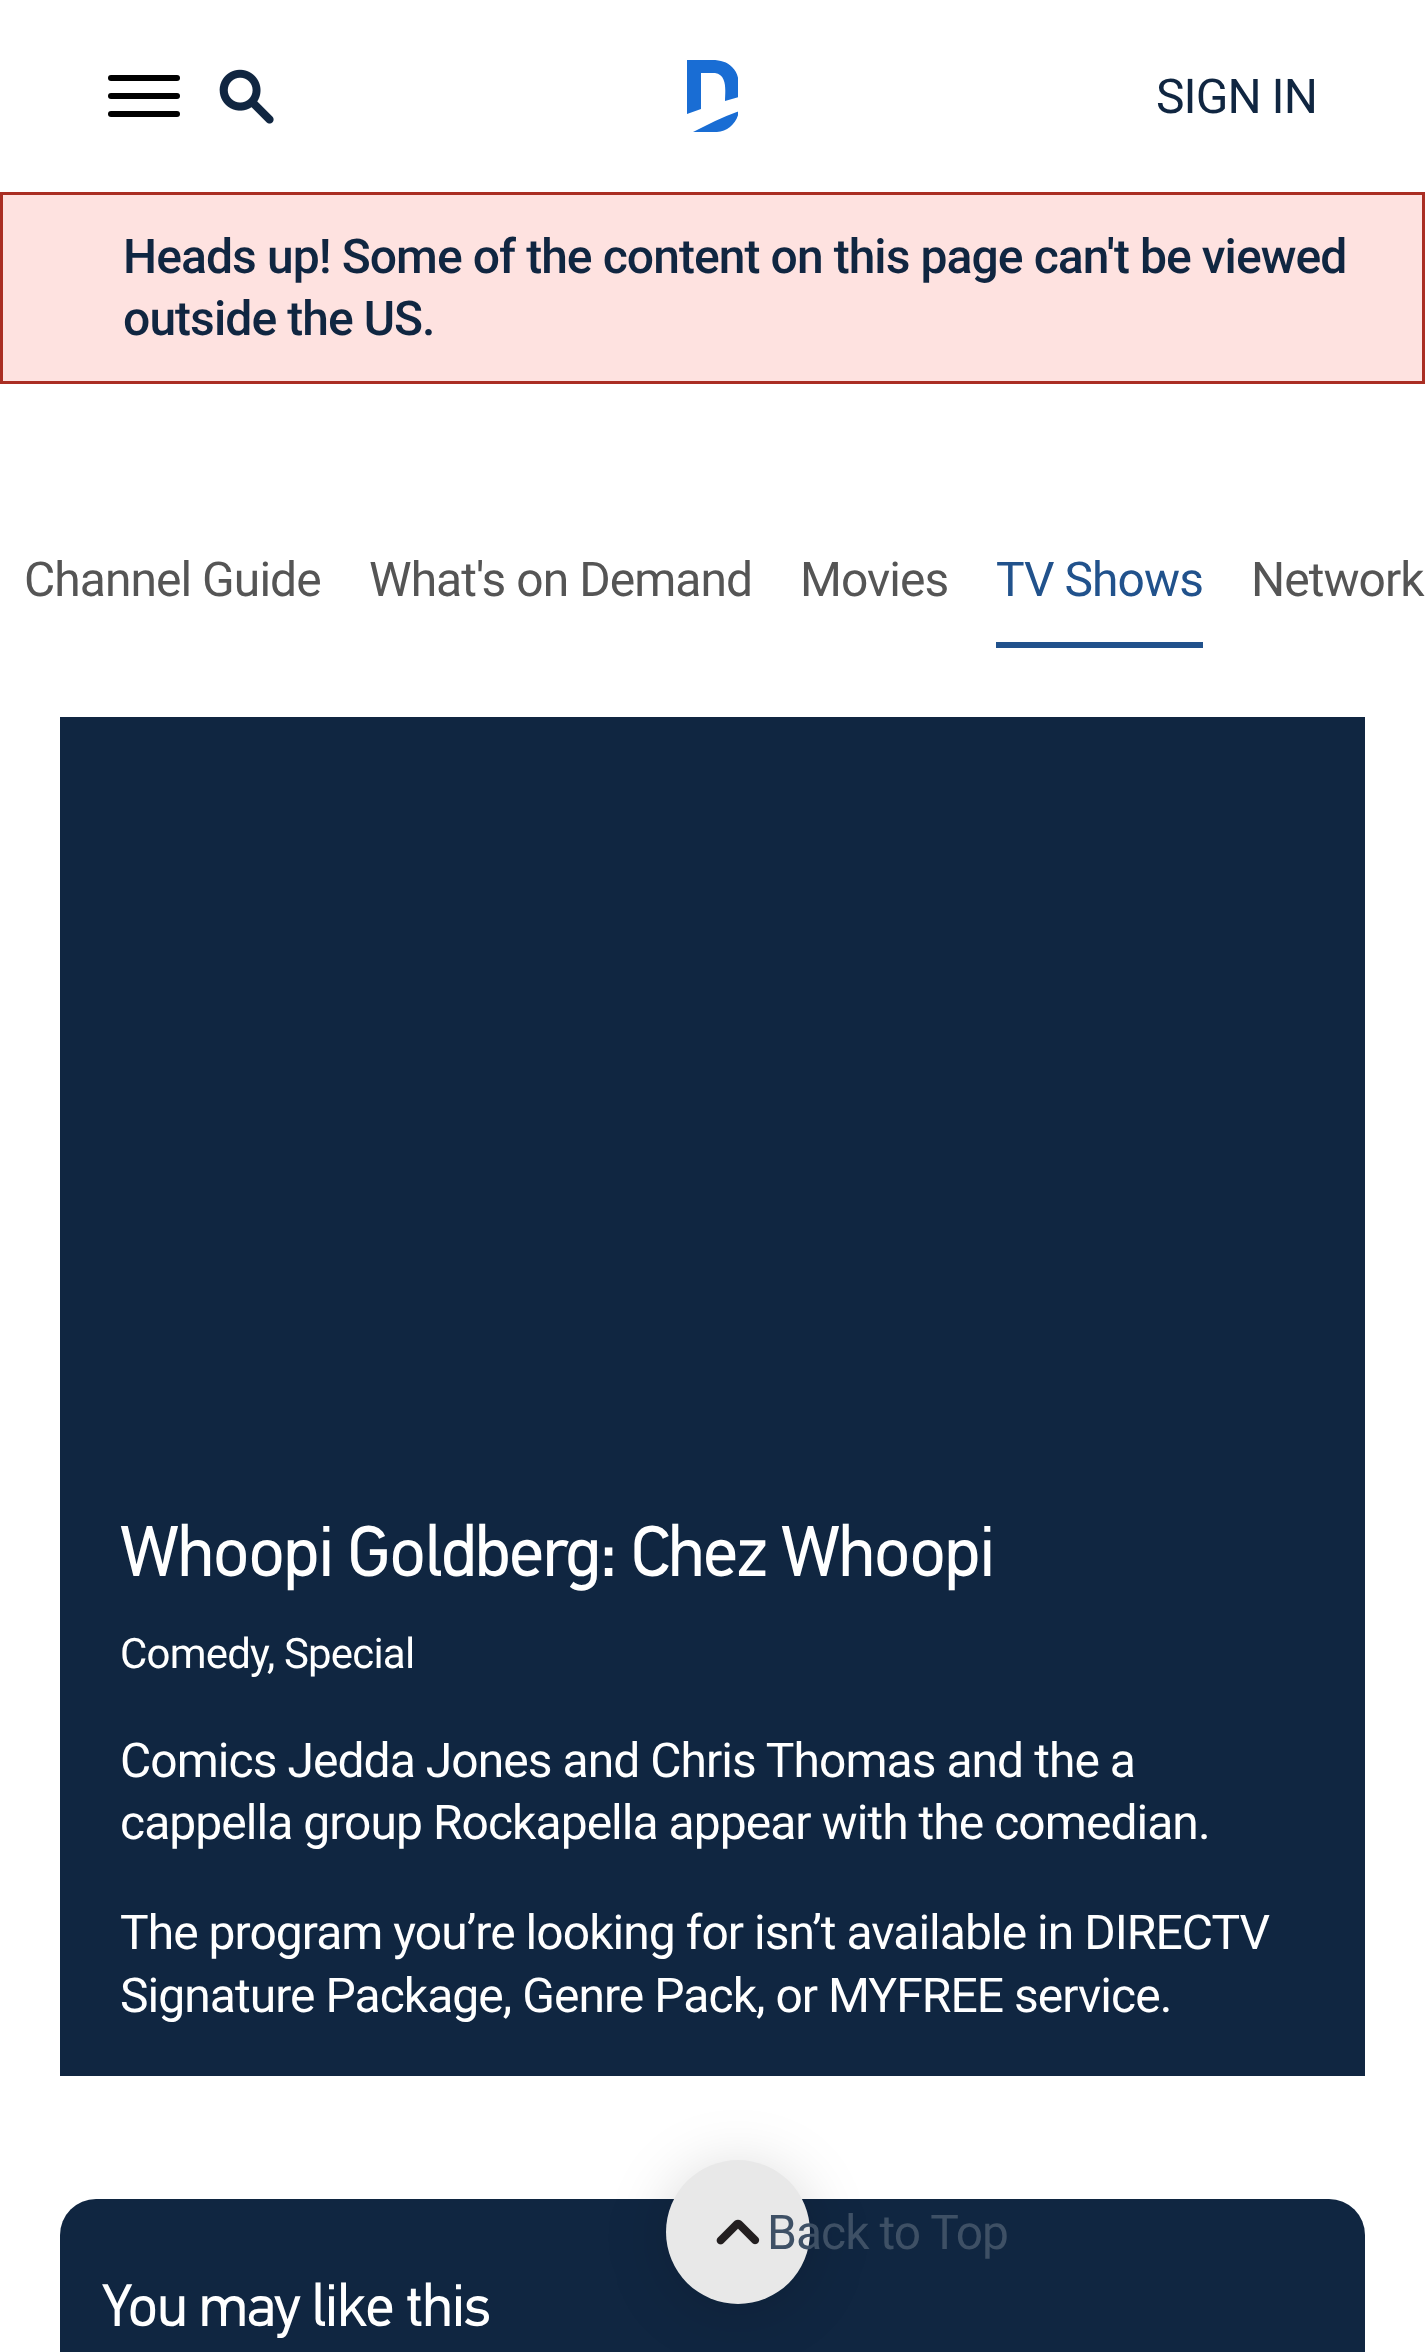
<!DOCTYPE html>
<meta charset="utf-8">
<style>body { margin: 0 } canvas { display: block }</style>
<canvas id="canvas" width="1425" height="2352"></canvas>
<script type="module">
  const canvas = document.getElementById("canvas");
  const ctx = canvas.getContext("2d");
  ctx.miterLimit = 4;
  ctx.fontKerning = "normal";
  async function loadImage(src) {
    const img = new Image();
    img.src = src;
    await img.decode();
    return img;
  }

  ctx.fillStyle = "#ffffff";
  ctx.fillRect(0, 0, 1425, 2352);
  ctx.fillStyle = "#000000";
  ctx.beginPath();
  ctx.roundRect(108, 75, 72, 6, 3);
  ctx.fill();
  ctx.beginPath();
  ctx.roundRect(108, 93, 72, 6, 3);
  ctx.fill();
  ctx.beginPath();
  ctx.roundRect(108, 111, 72, 6, 3);
  ctx.fill();
  ctx.drawImage(await loadImage("img1.png"), 219, 69, 55, 55);
  ctx.save();
  ctx.beginPath();
  ctx.rect(687, 60, 51, 72);
  ctx.clip();
  ctx.fillStyle = "#196dd4";
  ctx.beginPath();
  ctx.moveTo(732, 67);
  ctx.bezierCurveTo(727, 62, 721, 60, 712, 60);
  ctx.lineTo(687, 60);
  ctx.lineTo(687, 114);
  ctx.lineTo(701, 109);
  ctx.lineTo(701, 73);
  ctx.lineTo(715, 73);
  ctx.bezierCurveTo(728, 75, 725, 92, 725, 101);
  ctx.lineTo(739, 97);
  ctx.bezierCurveTo(739, 80, 739, 74, 732, 67);
  ctx.closePath();
  ctx.fill();
  ctx.beginPath();
  ctx.moveTo(713, 132);
  ctx.bezierCurveTo(726, 133, 737, 124, 739, 111);
  ctx.bezierCurveTo(723, 117, 708, 124, 693, 132);
  ctx.closePath();
  ctx.fill();
  ctx.restore();
  ctx.letterSpacing = "-0.95px";
  ctx.font = "48px Roboto";
  ctx.fillStyle = "#102641";
  ctx.fillText("SIGN IN", 1156, 113);
  ctx.fillStyle = "#fee2e0";
  ctx.beginPath();
  ctx.rect(1.5, 193.5, 1422, 189);
  ctx.fill();
  ctx.strokeStyle = "#aa2e23";
  ctx.lineWidth = 3;
  ctx.stroke();
  ctx.font = "500 48px Roboto";
  ctx.fillStyle = "#102641";
  ctx.fillText("Heads up! Some of the content on this page can't be viewed", 123, 273);
  ctx.fillText("outside the US.", 123, 335);
  ctx.font = "48px Roboto";
  ctx.fillStyle = "#555555";
  ctx.fillText("Channel Guide", 24, 596);
  ctx.fillText("What's on Demand", 369, 596);
  ctx.fillText("Movies", 800, 596);
  ctx.fillStyle = "#21528c";
  ctx.fillText("TV Shows", 996, 596);
  ctx.fillRect(996, 642, 207, 6);
  ctx.fillStyle = "#555555";
  ctx.fillText("Network", 1251, 596);
  ctx.fillStyle = "#102641";
  ctx.fillRect(60, 717, 1305, 1359);
  ctx.letterSpacing = "-1.45px";
  ctx.font = "72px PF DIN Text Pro";
  ctx.fillStyle = "#ffffff";
  ctx.fillText("Whoopi Goldberg: Chez Whoopi", 120, 1576);
  ctx.letterSpacing = "-0.8px";
  ctx.font = "42px Roboto";
  ctx.fillText("Comedy, Special", 120, 1668);
  ctx.letterSpacing = "-0.95px";
  ctx.font = "48px Roboto";
  ctx.fillText("Comics Jedda Jones and Chris Thomas and the a", 120, 1777);
  ctx.fillText("cappella group Rockapella appear with the comedian.", 120, 1839);
  ctx.fillText("The program you’re looking for isn’t available in DIRECTV", 120, 1949);
  ctx.fillText("Signature Package, Genre Pack, or MYFREE service.", 120, 2012);
  ctx.fillStyle = "#102641";
  ctx.beginPath();
  ctx.roundRect(60, 2199, 1305, 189, 36);
  ctx.fill();
  ctx.fillStyle = "rgba(0, 0, 0, 0.15)";
  ctx.filter = "blur(30px)";
  ctx.beginPath();
  ctx.roundRect(666, 2166, 144, 144, 72);
  ctx.fill();
  ctx.filter = "none";
  ctx.fillStyle = "#e8e8e8";
  ctx.beginPath();
  ctx.arc(738, 2232, 72, 0, Math.PI * 2);
  ctx.fill();
  ctx.drawImage(await loadImage("img2.png"), 716, 2219, 44, 26);
  ctx.fillStyle = "#3e5065";
  ctx.fillText("Back to Top", 767, 2249);
  ctx.letterSpacing = "-1.25px";
  ctx.font = "60px PF DIN Text Pro";
  ctx.fillStyle = "#ffffff";
  ctx.fillText("You may like this", 102, 2326);
</script>
